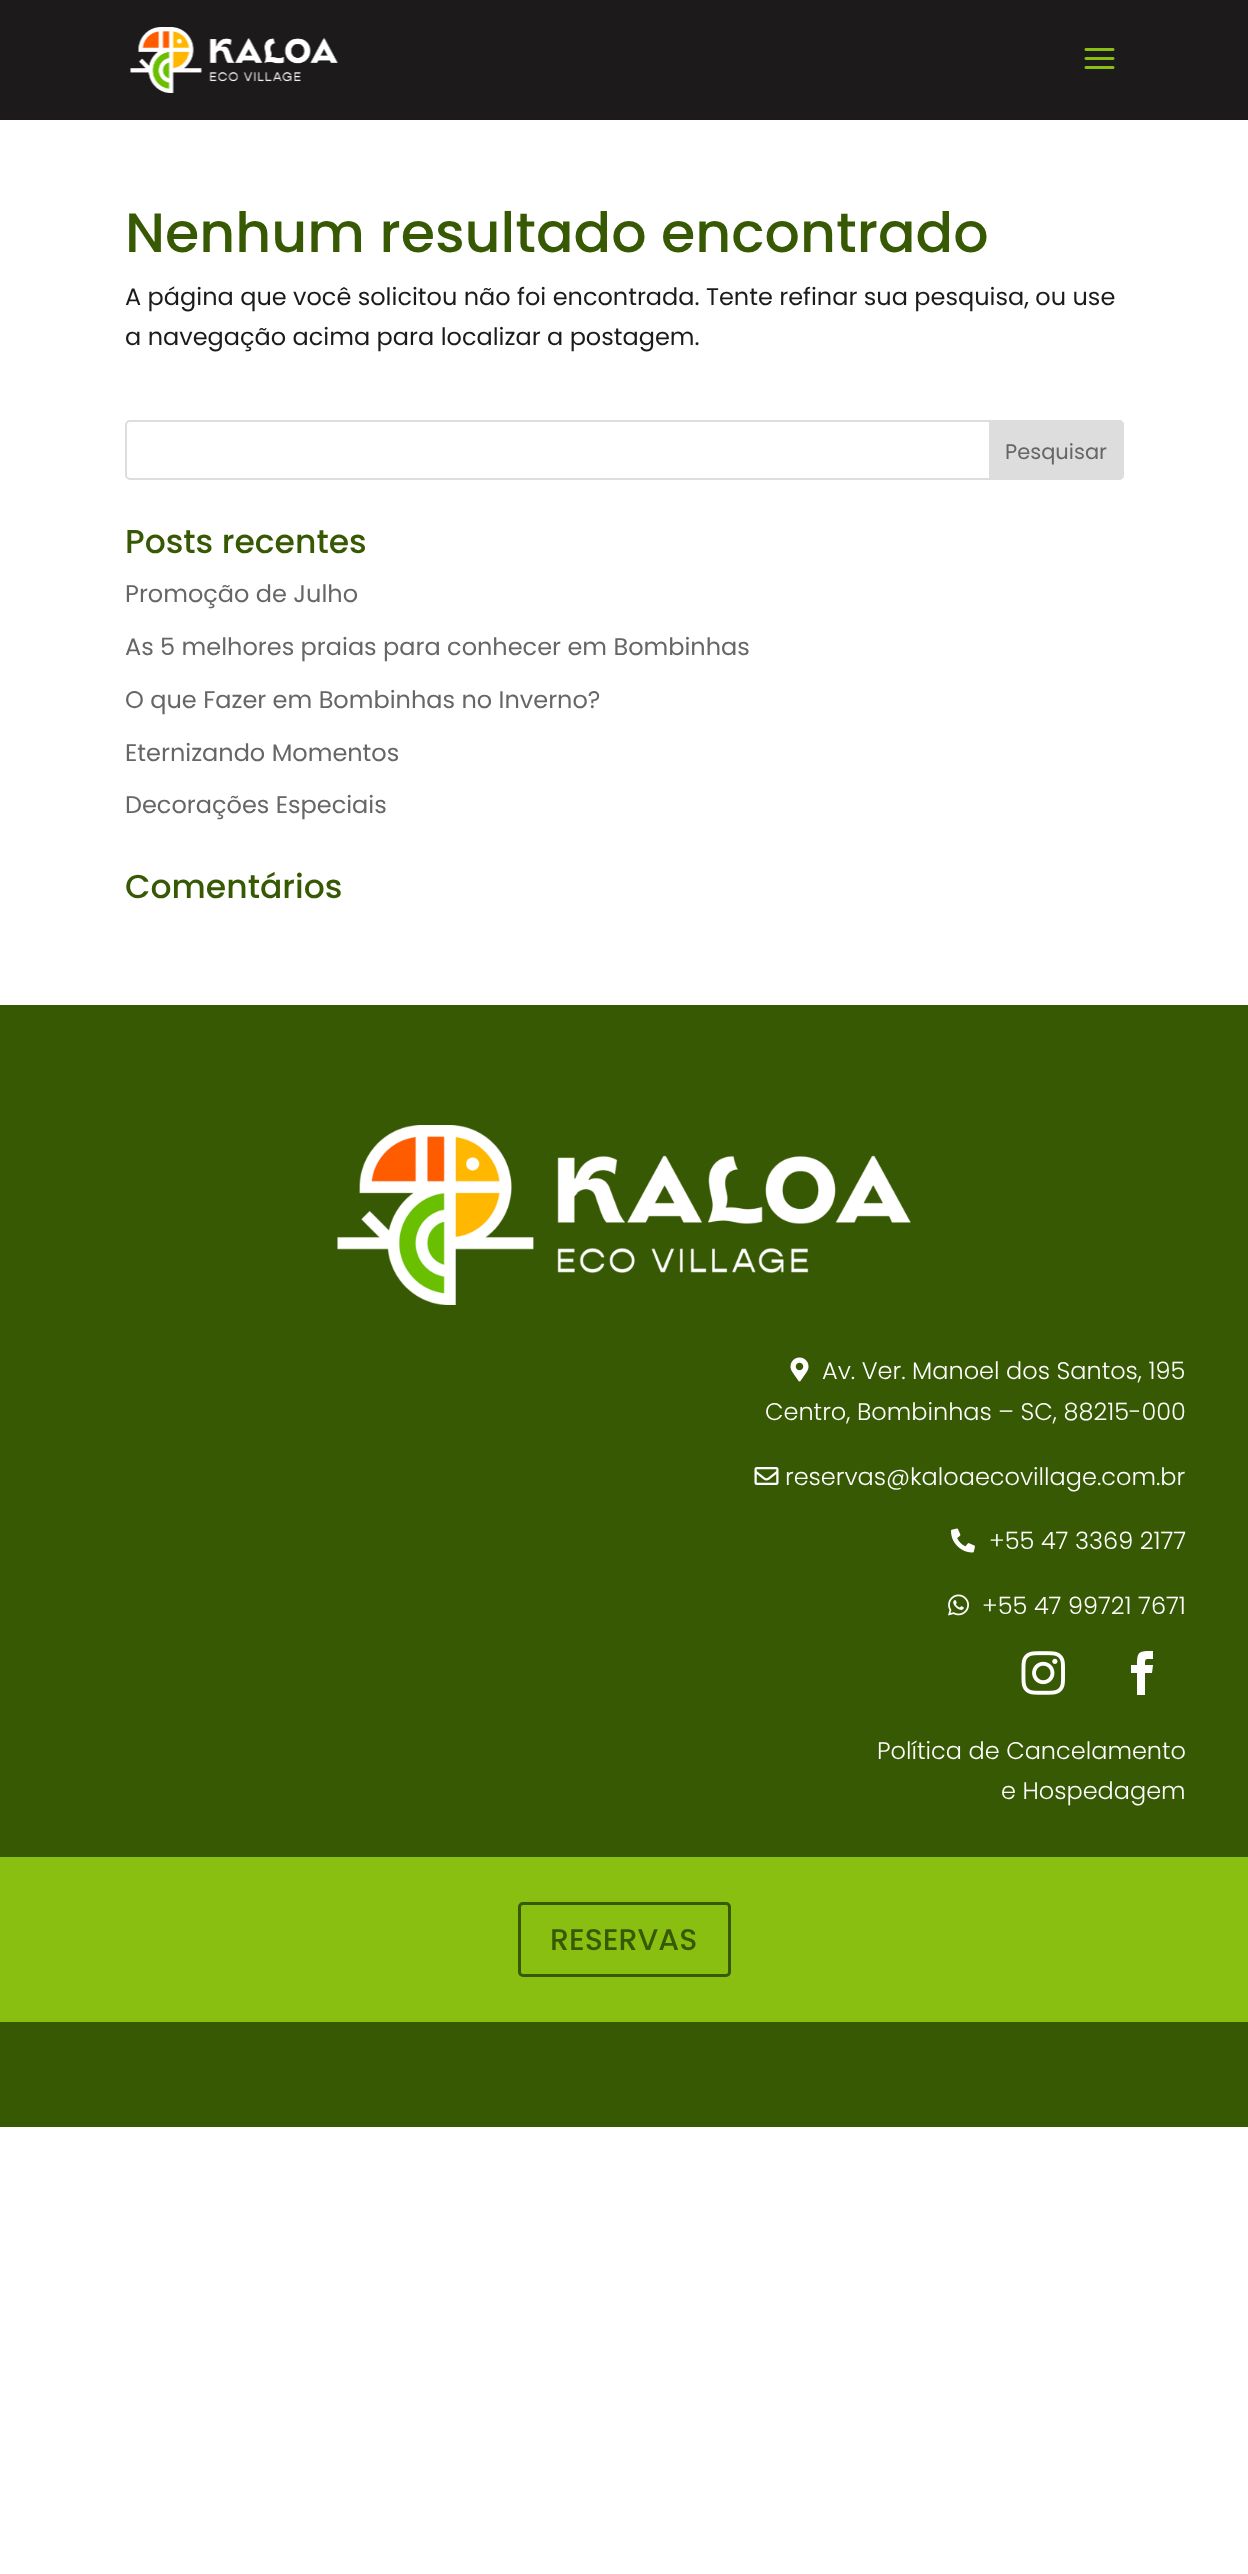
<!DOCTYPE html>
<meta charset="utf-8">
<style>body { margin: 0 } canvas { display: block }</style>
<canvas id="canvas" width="1248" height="2574"></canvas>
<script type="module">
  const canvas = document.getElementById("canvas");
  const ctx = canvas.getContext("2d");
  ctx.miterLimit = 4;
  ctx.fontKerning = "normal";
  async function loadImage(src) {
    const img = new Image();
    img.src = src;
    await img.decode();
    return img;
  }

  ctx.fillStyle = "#ffffff";
  ctx.fillRect(0, 0, 1248, 2574);
  ctx.fillStyle = "#1c1a1b";
  ctx.fillRect(0, 0, 1248, 120);
  ctx.drawImage(await loadImage("img1.png"), 130, 27, 208, 66);
  ctx.drawImage(await loadImage("img2.png"), 1084, 48, 31, 21);
  ctx.font = "500 55.5px Poppins";
  ctx.fillStyle = "#375903";
  ctx.fillText("Nenhum resultado encontrado", 125, 252);
  ctx.font = "24px Poppins";
  ctx.fillStyle = "#1c1a1b";
  ctx.fillText("A página que você solicitou não foi encontrada. Tente refinar sua pesquisa, ou use", 125, 305);
  ctx.fillText("a navegação acima para localizar a postagem.", 125, 345);
  ctx.beginPath();
  ctx.roundRect(126, 421, 997, 58, 4);
  ctx.strokeStyle = "#dddddd";
  ctx.lineWidth = 2;
  ctx.stroke();
  ctx.fillStyle = "#dddddd";
  ctx.beginPath();
  ctx.roundRect(990, 421, 133, 58, [0, 4, 4, 0]);
  ctx.fill();
  ctx.stroke();
  ctx.font = "21px Poppins";
  ctx.fillStyle = "#666666";
  ctx.fillText("Pesquisar", 1005, 459);
  ctx.font = "500 33px Poppins";
  ctx.fillStyle = "#375903";
  ctx.fillText("Posts recentes", 125, 553);
  ctx.font = "24px Poppins";
  ctx.fillStyle = "#666666";
  ctx.fillText("Promoção de Julho", 125, 602);
  ctx.fillText("As 5 melhores praias para conhecer em Bombinhas", 125, 655);
  ctx.fillText("O que Fazer em Bombinhas no Inverno?", 125, 708);
  ctx.fillText("Eternizando Momentos", 125, 761);
  ctx.fillText("Decorações Especiais", 125, 813);
  ctx.font = "500 33px Poppins";
  ctx.fillStyle = "#375903";
  ctx.fillText("Comentários", 125, 898);
  ctx.fillRect(0, 1005, 1248, 852);
  ctx.drawImage(await loadImage("img3.png"), 337, 1125, 574, 180);
  ctx.drawImage(await loadImage("img4.png"), 790, 1357, 19, 25);
  ctx.font = "300 24px Poppins";
  ctx.fillStyle = "#ffffff";
  ctx.fillText("Av. Ver. Manoel dos Santos, 195", 822, 1379);
  ctx.fillText("Centro, Bombinhas – SC, 88215-000", 765, 1420);
  ctx.drawImage(await loadImage("img5.png"), 754, 1467, 25, 18);
  ctx.fillText("reservas@kaloaecovillage.com.br", 785, 1485);
  ctx.drawImage(await loadImage("img6.png"), 951, 1528, 24, 25);
  ctx.fillText("+55 47 3369 2177", 989, 1549);
  ctx.drawImage(await loadImage("img7.png"), 948, 1594, 21, 22);
  ctx.fillText("+55 47 99721 7671", 982, 1614);
  ctx.drawImage(await loadImage("img8.png"), 1021, 1651, 44, 44);
  ctx.beginPath();
  ctx.moveTo(1137, 1695);
  ctx.lineTo(1145, 1695);
  ctx.lineTo(1145, 1673);
  ctx.lineTo(1152, 1673);
  ctx.lineTo(1153, 1665);
  ctx.lineTo(1145, 1665);
  ctx.bezierCurveTo(1145, 1658, 1145, 1659, 1153, 1659);
  ctx.lineTo(1153, 1651);
  ctx.bezierCurveTo(1139, 1651, 1137, 1651, 1137, 1665);
  ctx.lineTo(1131, 1665);
  ctx.lineTo(1131, 1673);
  ctx.lineTo(1137, 1673);
  ctx.closePath();
  ctx.fill();
  ctx.fillText("Política de Cancelamento", 877, 1759);
  ctx.fillText("e Hospedagem", 1001, 1799);
  ctx.fillStyle = "#88bf11";
  ctx.fillRect(0, 1857, 1248, 165);
  ctx.beginPath();
  ctx.roundRect(519.5, 1903.5, 210, 72, 3.5);
  ctx.strokeStyle = "#375903";
  ctx.lineWidth = 3;
  ctx.stroke();
  ctx.font = "500 30px Poppins";
  ctx.fillStyle = "#375903";
  ctx.fillText("RESERVAS", 550, 1950);
  ctx.fillRect(0, 2022, 1248, 105);
</script>
